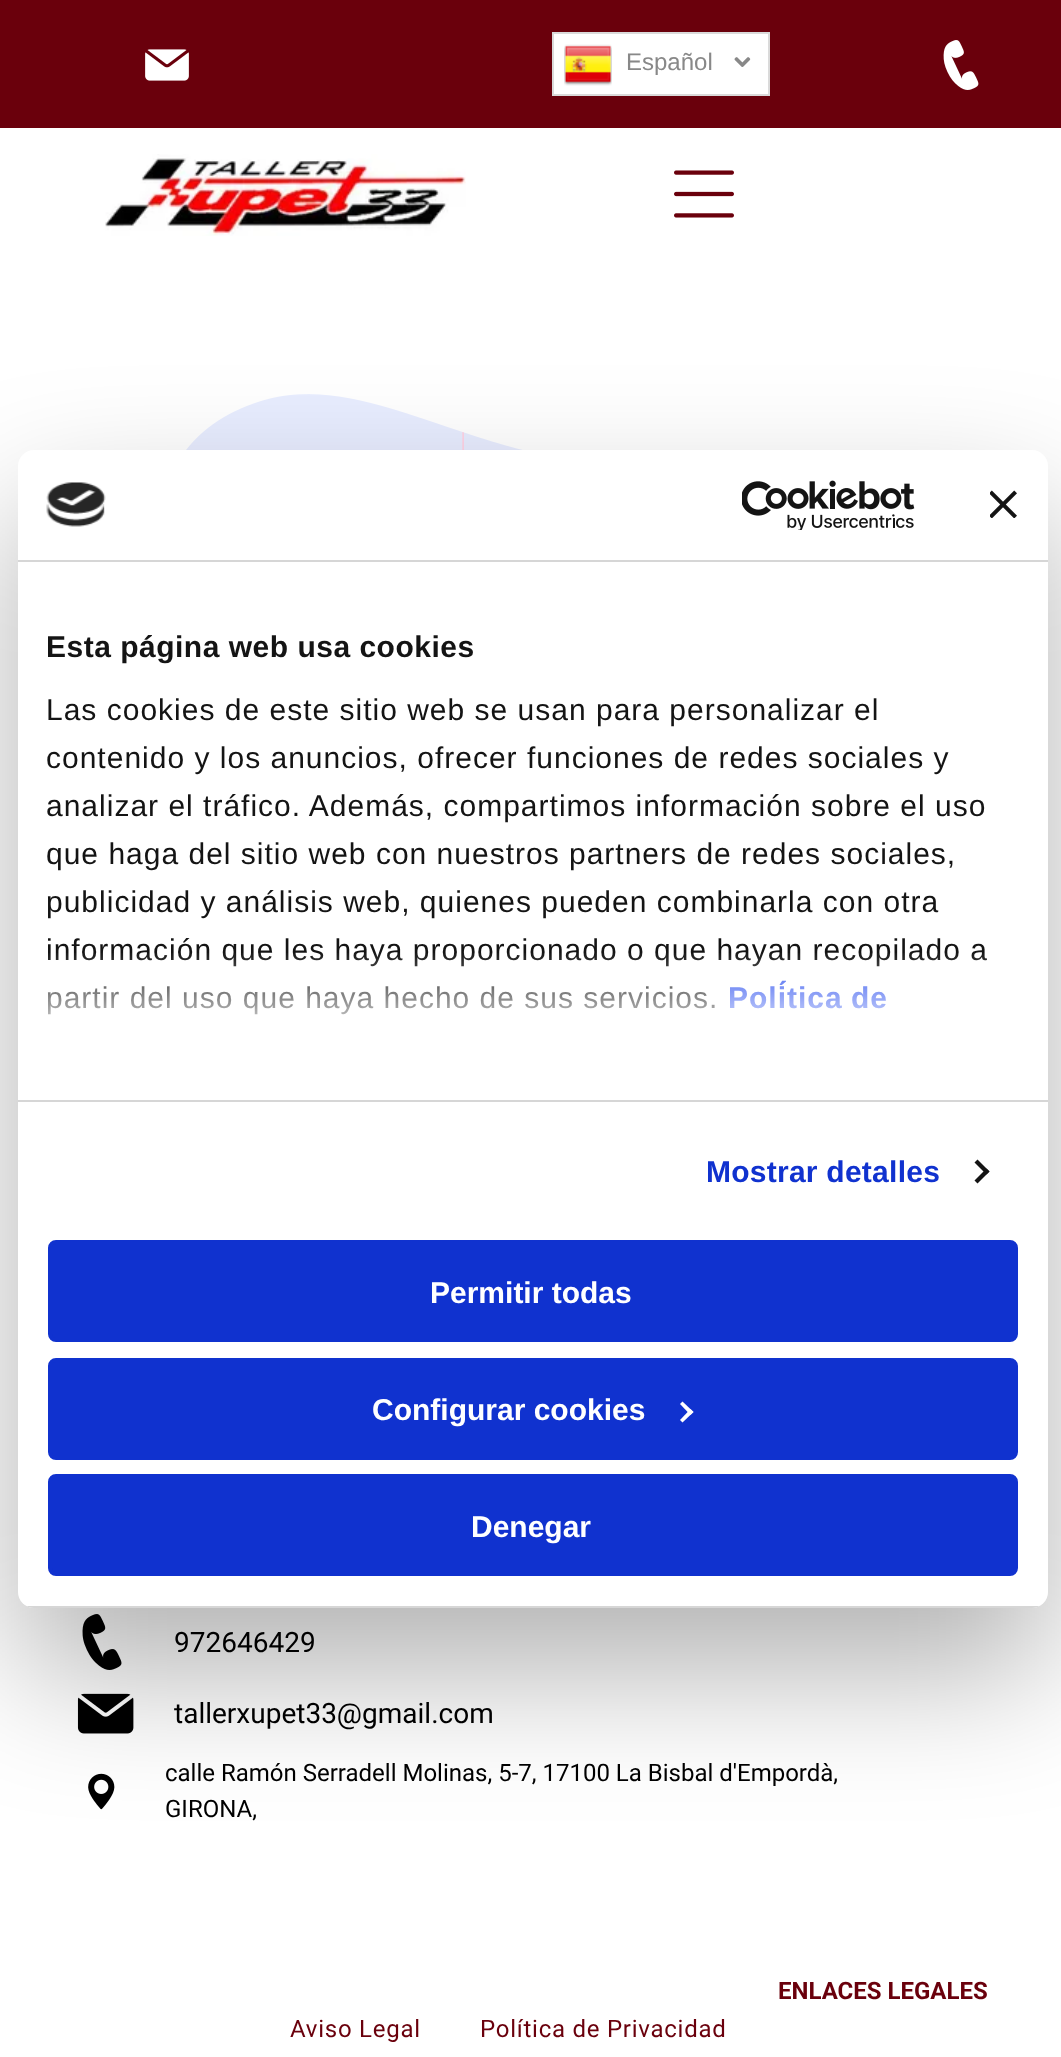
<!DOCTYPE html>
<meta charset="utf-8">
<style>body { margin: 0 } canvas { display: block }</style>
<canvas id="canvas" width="1061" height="2057"></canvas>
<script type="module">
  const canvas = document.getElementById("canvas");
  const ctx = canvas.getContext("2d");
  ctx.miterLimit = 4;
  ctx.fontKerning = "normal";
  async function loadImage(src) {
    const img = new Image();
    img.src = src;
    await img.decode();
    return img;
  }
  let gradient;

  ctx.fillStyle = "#ffffff";
  ctx.fillRect(0, 0, 1061, 2057);
  ctx.fillStyle = "#6a000c";
  ctx.fillRect(0, 0, 1061, 128);
  ctx.drawImage(await loadImage("img1.png"), 145, 49, 44, 32);
  ctx.fillStyle = "#ffffff";
  ctx.beginPath();
  ctx.rect(553, 33, 216, 62);
  ctx.fill();
  ctx.strokeStyle = "#dadada";
  ctx.lineWidth = 2;
  ctx.stroke();
  ctx.drawImage(await loadImage("img2.png"), 564, 44, 48, 42);
  ctx.font = "24px Liberation Sans";
  ctx.fillStyle = "#888888";
  ctx.fillText("Español", 626, 70);
  ctx.drawImage(await loadImage("img3.png"), 734, 57, 17, 10);
  ctx.drawImage(await loadImage("img4.png"), 943, 40, 36, 50);
  ctx.drawImage(await loadImage("img5.png"), 105, 154, 361, 82);
  ctx.drawImage(await loadImage("img6.png"), 674, 170, 60, 48);
  ctx.drawImage(await loadImage("img7.png"), 186, 394, 337, 56);
  ctx.drawImage(await loadImage("img8.png"), 82, 1614, 40, 56);
  ctx.font = "28px Roboto";
  ctx.fillStyle = "#000000";
  ctx.fillText("972646429", 174, 1652);
  ctx.drawImage(await loadImage("img9.png"), 77, 1693, 57, 41);
  ctx.fillText("tallerxupet33@gmail.com", 174, 1723);
  ctx.drawImage(await loadImage("img10.png"), 88, 1773, 27, 37);
  ctx.font = "24px Roboto";
  ctx.fillText("calle Ramón Serradell Molinas, 5-7, 17100 La Bisbal d'Empordà,", 165, 1781);
  ctx.fillText("GIRONA,", 165, 1817);
  ctx.font = "bold 24px Roboto";
  ctx.fillStyle = "#6a000c";
  ctx.fillText("ENLACES LEGALES", 778, 1999);
  ctx.letterSpacing = "0.75px";
  ctx.font = "24px Roboto";
  ctx.fillText("Aviso Legal", 290, 2037);
  ctx.fillText("Política de Privacidad", 480, 2037);
  ctx.fillStyle = "rgba(0, 0, 0, 0.3)";
  ctx.filter = "blur(68px)";
  ctx.beginPath();
  ctx.roundRect(18, 514, 1030, 1158, 16);
  ctx.fill();
  ctx.filter = "none";
  ctx.fillStyle = "#ffffff";
  ctx.beginPath();
  ctx.roundRect(18, 450, 1030, 1158, 16);
  ctx.fill();
  ctx.fillStyle = "#d6d6d6";
  ctx.fillRect(18, 560, 1030, 2);
  ctx.drawImage(await loadImage("img11.png"), 46, 482, 60, 45);
  ctx.drawImage(await loadImage("img12.png"), 742, 480, 173, 50);
  ctx.drawImage(await loadImage("img13.png"), 990, 490, 27, 28);
  ctx.fillRect(18, 1100, 1030, 2);
  ctx.letterSpacing = "0.5px";
  ctx.font = "bold 30px Liberation Sans";
  ctx.fillStyle = "#141414";
  ctx.fillText("Esta página web usa cookies", 46, 657);
  ctx.letterSpacing = "1px";
  ctx.font = "30px Liberation Sans";
  ctx.fillText("Las cookies de este sitio web se usan para personalizar el", 46, 720);
  ctx.fillText("contenido y los anuncios, ofrecer funciones de redes sociales y", 46, 768);
  ctx.fillText("analizar el tráfico. Además, compartimos información sobre el uso", 46, 816);
  ctx.fillText("que haga del sitio web con nuestros partners de redes sociales,", 46, 864);
  ctx.fillText("publicidad y análisis web, quienes pueden combinarla con otra", 46, 912);
  ctx.fillText("información que les haya proporcionado o que hayan recopilado a", 46, 960);
  ctx.fillText("partir del uso que haya hecho de sus servicios.", 46, 1008);
  ctx.wordSpacing = "-1px";
  ctx.font = "bold 30px Liberation Sans";
  ctx.fillStyle = "#2a4eef";
  ctx.fillText("Política de", 728, 1008);
  gradient = ctx.createLinearGradient(519, 1101, 519, 951);
  gradient.addColorStop(0, "#ffffff");
  gradient.addColorStop(0.5, "rgba(255, 255, 255, 0.8)");
  gradient.addColorStop(1, "rgba(255, 255, 255, 0)");
  ctx.fillStyle = gradient;
  ctx.fillRect(47, 953, 940, 62);
  ctx.letterSpacing = "0.25px";
  ctx.wordSpacing = "0px";
  ctx.fillStyle = "#1032cf";
  ctx.fillText("Mostrar detalles", 706, 1182);
  ctx.fillStyle = "#141414";
  ctx.beginPath();
  ctx.moveTo(977.5, 1159.5);
  ctx.lineTo(989.5, 1171.5);
  ctx.lineTo(986.5, 1174.5);
  ctx.lineTo(974.5, 1162.5);
  ctx.closePath();
  ctx.fill();
  ctx.beginPath();
  ctx.moveTo(986.5, 1168.5);
  ctx.lineTo(989.5, 1171.5);
  ctx.lineTo(977.5, 1183.5);
  ctx.lineTo(974.5, 1180.5);
  ctx.closePath();
  ctx.fill();
  ctx.save();
  ctx.beginPath();
  ctx.roundRect(18, 450, 1030, 1158, 16);
  ctx.clip();
  ctx.fillStyle = "#d6d6d6";
  ctx.fillRect(18, 1606, 1030, 2);
  ctx.restore();
  ctx.fillStyle = "#1032cf";
  ctx.beginPath();
  ctx.roundRect(50, 1242, 966, 98, 6);
  ctx.fill();
  ctx.strokeStyle = "#1032cf";
  ctx.lineWidth = 4;
  ctx.stroke();
  ctx.letterSpacing = "0px";
  ctx.fillStyle = "#ffffff";
  ctx.fillText("Permitir todas", 430, 1303);
  ctx.fillStyle = "#1032cf";
  ctx.beginPath();
  ctx.roundRect(50, 1360, 966, 98, 6);
  ctx.fill();
  ctx.stroke();
  ctx.fillStyle = "#ffffff";
  ctx.fillText("Configurar cookies", 372, 1420);
  ctx.beginPath();
  ctx.moveTo(682.5, 1401.5);
  ctx.lineTo(693.5, 1412);
  ctx.lineTo(690.5, 1415);
  ctx.lineTo(680, 1404);
  ctx.closePath();
  ctx.fill();
  ctx.beginPath();
  ctx.moveTo(690.5, 1409);
  ctx.lineTo(693.5, 1412);
  ctx.lineTo(682.5, 1422.5);
  ctx.lineTo(680, 1420);
  ctx.closePath();
  ctx.fill();
  ctx.fillStyle = "#1032cf";
  ctx.beginPath();
  ctx.roundRect(50, 1476, 966, 98, 6);
  ctx.fill();
  ctx.stroke();
  ctx.fillStyle = "#ffffff";
  ctx.fillText("Denegar", 471, 1537);
</script>
